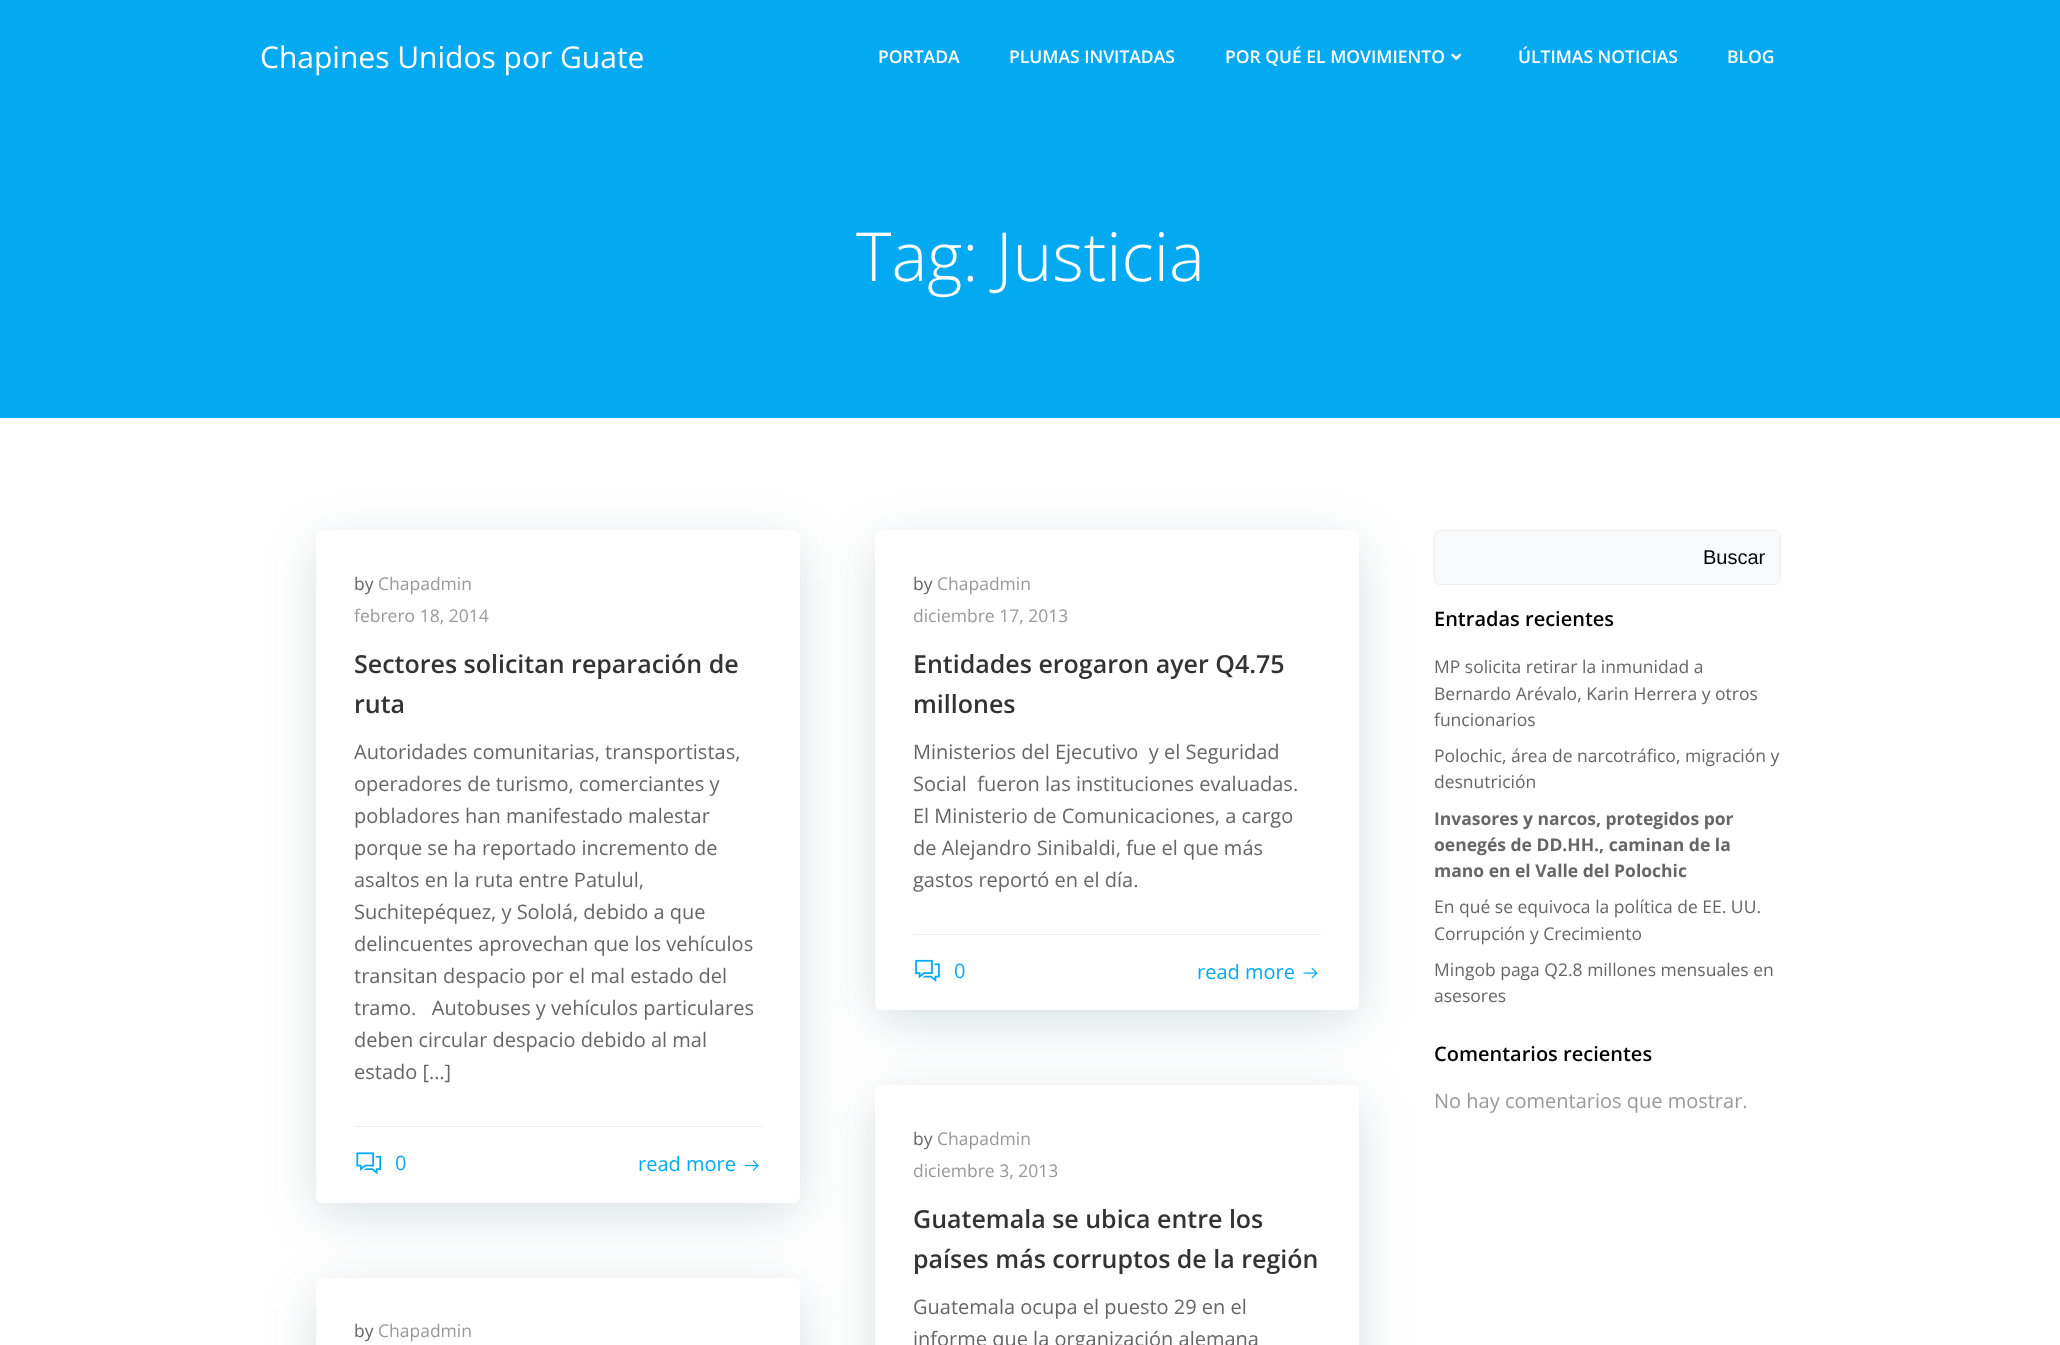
<!DOCTYPE html>
<meta charset="utf-8">
<style>body { margin: 0 } canvas { display: block }</style>
<canvas id="canvas" width="2060" height="1345"></canvas>
<script type="module">
  const canvas = document.getElementById("canvas");
  const ctx = canvas.getContext("2d");
  ctx.miterLimit = 4;
  ctx.fontKerning = "normal";
  async function loadImage(src) {
    const img = new Image();
    img.src = src;
    await img.decode();
    return img;
  }

  ctx.fillStyle = "#ffffff";
  ctx.fillRect(0, 0, 2060, 1345);
  ctx.fillStyle = "#03a9f1";
  ctx.fillRect(0, 0, 2060, 418);
  ctx.font = "30px Open Sans";
  ctx.fillStyle = "#ffffff";
  ctx.fillText("Chapines Unidos por Guate", 260, 68);
  ctx.font = "600 17.5px Open Sans";
  ctx.fillText("PORTADA", 878, 63);
  ctx.fillText("PLUMAS INVITADAS", 1009, 63);
  ctx.fillText("POR QUÉ EL MOVIMIENTO", 1225, 63);
  ctx.drawImage(await loadImage("img1.png"), 1451, 53, 11, 8);
  ctx.fillText("ÚLTIMAS NOTICIAS", 1518, 63);
  ctx.fillText("BLOG", 1727, 63);
  ctx.font = "300 67.5px Open Sans";
  ctx.fillText("Tag: Justicia", 856, 281);
  ctx.fillStyle = "rgba(1, 51, 74, 0.15)";
  ctx.filter = "blur(25px)";
  ctx.beginPath();
  ctx.roundRect(316, 543, 484, 672, 6);
  ctx.fill();
  ctx.filter = "none";
  ctx.fillStyle = "#ffffff";
  ctx.beginPath();
  ctx.roundRect(316, 530, 484, 673, 6);
  ctx.fill();
  ctx.fillStyle = "#eeeeee";
  ctx.fillRect(354, 1126, 409, 1);
  ctx.font = "17.5px Open Sans";
  ctx.fillStyle = "#666666";
  ctx.fillText("by", 354, 590);
  ctx.fillStyle = "#999999";
  ctx.fillText("Chapadmin", 378, 590);
  ctx.fillText("febrero 18, 2014", 354, 622);
  ctx.font = "600 25px Open Sans";
  ctx.fillStyle = "#333333";
  ctx.fillText("Sectores solicitan reparación de", 354, 673);
  ctx.fillText("ruta", 354, 713);
  ctx.font = "20px Open Sans";
  ctx.fillStyle = "#666666";
  ctx.fillText("Autoridades comunitarias, transportistas,", 354, 759);
  ctx.fillText("operadores de turismo, comerciantes y", 354, 791);
  ctx.fillText("pobladores han manifestado malestar", 354, 823);
  ctx.fillText("porque se ha reportado incremento de", 354, 855);
  ctx.fillText("asaltos en la ruta entre Patulul,", 354, 887);
  ctx.fillText("Suchitepéquez, y Sololá, debido a que", 354, 919);
  ctx.fillText("delincuentes aprovechan que los vehículos", 354, 951);
  ctx.fillText("transitan despacio por el mal estado del", 354, 983);
  ctx.fillText("tramo.   Autobuses y vehículos particulares", 354, 1015);
  ctx.fillText("deben circular despacio debido al mal", 354, 1047);
  ctx.fillText("estado […]", 354, 1079);
  ctx.drawImage(await loadImage("img2.png"), 356, 1152, 26, 23);
  ctx.fillStyle = "#03a9f4";
  ctx.fillText("0", 395, 1170);
  ctx.fillText("read more", 638, 1171);
  ctx.drawImage(await loadImage("img3.png"), 744, 1160, 15, 11);
  ctx.fillStyle = "rgba(1, 51, 74, 0.15)";
  ctx.filter = "blur(25px)";
  ctx.beginPath();
  ctx.roundRect(875, 543, 484, 480, 6);
  ctx.fill();
  ctx.filter = "none";
  ctx.fillStyle = "#ffffff";
  ctx.beginPath();
  ctx.roundRect(875, 530, 484, 480, 6);
  ctx.fill();
  ctx.fillStyle = "#eeeeee";
  ctx.fillRect(913, 934, 408, 1);
  ctx.font = "17.5px Open Sans";
  ctx.fillStyle = "#666666";
  ctx.fillText("by", 913, 590);
  ctx.fillStyle = "#999999";
  ctx.fillText("Chapadmin", 937, 590);
  ctx.fillText("diciembre 17, 2013", 913, 622);
  ctx.font = "600 25px Open Sans";
  ctx.fillStyle = "#333333";
  ctx.fillText("Entidades erogaron ayer Q4.75", 913, 673);
  ctx.fillText("millones", 913, 713);
  ctx.font = "20px Open Sans";
  ctx.fillStyle = "#666666";
  ctx.fillText("Ministerios del Ejecutivo  y el Seguridad", 913, 759);
  ctx.fillText("Social  fueron las instituciones evaluadas.", 913, 791);
  ctx.fillText("El Ministerio de Comunicaciones, a cargo", 913, 823);
  ctx.fillText("de Alejandro Sinibaldi, fue el que más", 913, 855);
  ctx.fillText("gastos reportó en el día.", 913, 887);
  ctx.drawImage(await loadImage("img4.png"), 915, 959, 25, 23);
  ctx.fillStyle = "#03a9f4";
  ctx.fillText("0", 954, 978);
  ctx.fillText("read more", 1197, 979);
  ctx.drawImage(await loadImage("img5.png"), 1303, 967, 15, 12);
  ctx.fillStyle = "rgba(1, 51, 74, 0.15)";
  ctx.filter = "blur(25px)";
  ctx.beginPath();
  ctx.roundRect(875, 1098, 484, 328, 6);
  ctx.fill();
  ctx.filter = "none";
  ctx.fillStyle = "#ffffff";
  ctx.beginPath();
  ctx.roundRect(875, 1085, 484, 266, 6);
  ctx.fill();
  ctx.fillStyle = "rgba(1, 51, 74, 0.15)";
  ctx.filter = "blur(25px)";
  ctx.beginPath();
  ctx.roundRect(316, 1290, 484, 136, 6);
  ctx.fill();
  ctx.filter = "none";
  ctx.fillStyle = "#ffffff";
  ctx.beginPath();
  ctx.roundRect(316, 1278, 484, 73, 6);
  ctx.fill();
  ctx.font = "17.5px Open Sans";
  ctx.fillStyle = "#666666";
  ctx.fillText("by", 354, 1337);
  ctx.fillStyle = "#999999";
  ctx.fillText("Chapadmin", 378, 1337);
  ctx.fillStyle = "#666666";
  ctx.fillText("by", 913, 1145);
  ctx.fillStyle = "#999999";
  ctx.fillText("Chapadmin", 937, 1145);
  ctx.fillText("diciembre 3, 2013", 913, 1177);
  ctx.font = "600 25px Open Sans";
  ctx.fillStyle = "#333333";
  ctx.fillText("Guatemala se ubica entre los", 913, 1228);
  ctx.fillText("países más corruptos de la región", 913, 1268);
  ctx.font = "20px Open Sans";
  ctx.fillStyle = "#666666";
  ctx.fillText("Guatemala ocupa el puesto 29 en el", 913, 1314);
  ctx.fillText("informe que la organización alemana", 913, 1346);
  ctx.beginPath();
  ctx.roundRect(1434.5, 530.5, 346, 54, 5.5);
  ctx.strokeStyle = "#eeeeee";
  ctx.stroke();
  ctx.save();
  ctx.beginPath();
  ctx.roundRect(1435, 531, 345, 53, 5);
  ctx.clip();
  ctx.fillStyle = "#f9fafb";
  ctx.beginPath();
  ctx.roundRect(1435, 531, 253, 53, [6, 0, 0, 6]);
  ctx.fill();
  ctx.beginPath();
  ctx.roundRect(1688, 531, 92, 53, [0, 6, 6, 0]);
  ctx.fill();
  ctx.restore();
  ctx.font = "20px Liberation Sans";
  ctx.fillStyle = "#000000";
  ctx.fillText("Buscar", 1703, 564);
  ctx.font = "600 20px Open Sans";
  ctx.fillText("Entradas recientes", 1434, 626);
  ctx.font = "17.5px Open Sans";
  ctx.fillStyle = "#666666";
  ctx.fillText("MP solicita retirar la inmunidad a", 1434, 673);
  ctx.fillText("Bernardo Arévalo, Karin Herrera y otros", 1434, 700);
  ctx.fillText("funcionarios", 1434, 726);
  ctx.fillText("Polochic, área de narcotráfico, migración y", 1434, 762);
  ctx.fillText("desnutrición", 1434, 788);
  ctx.font = "bold 17.5px Open Sans";
  ctx.fillText("Invasores y narcos, protegidos por", 1434, 825);
  ctx.fillText("oenegés de DD.HH., caminan de la", 1434, 851);
  ctx.fillText("mano en el Valle del Polochic", 1434, 877);
  ctx.font = "17.5px Open Sans";
  ctx.fillText("En qué se equivoca la política de EE. UU.", 1434, 913);
  ctx.fillText("Corrupción y Crecimiento", 1434, 940);
  ctx.fillText("Mingob paga Q2.8 millones mensuales en", 1434, 976);
  ctx.fillText("asesores", 1434, 1002);
  ctx.font = "600 20px Open Sans";
  ctx.fillStyle = "#000000";
  ctx.fillText("Comentarios recientes", 1434, 1061);
  ctx.font = "20px Open Sans";
  ctx.fillStyle = "#999999";
  ctx.fillText("No hay comentarios que mostrar.", 1434, 1108);
</script>
